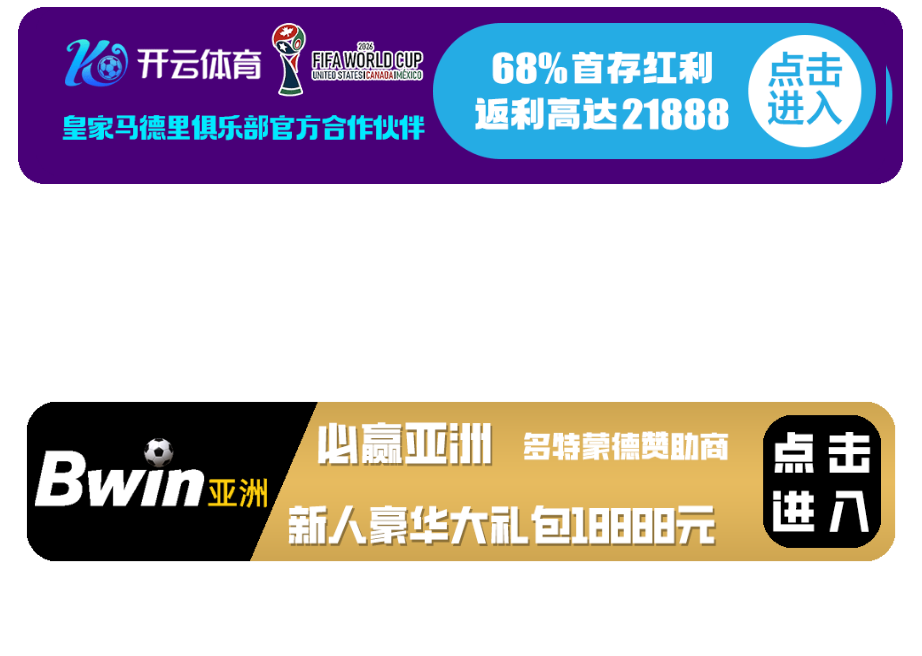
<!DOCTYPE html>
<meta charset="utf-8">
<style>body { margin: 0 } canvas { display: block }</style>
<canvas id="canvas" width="922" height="656"></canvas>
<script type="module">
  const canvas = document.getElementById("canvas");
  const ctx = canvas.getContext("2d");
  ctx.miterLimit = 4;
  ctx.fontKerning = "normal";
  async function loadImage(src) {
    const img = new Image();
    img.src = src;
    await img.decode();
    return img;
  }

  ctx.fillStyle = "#ffffff";
  ctx.fillRect(0, 0, 922, 656);
  ctx.drawImage(await loadImage("img1.png"), 18, 7, 885, 555);
</script>
